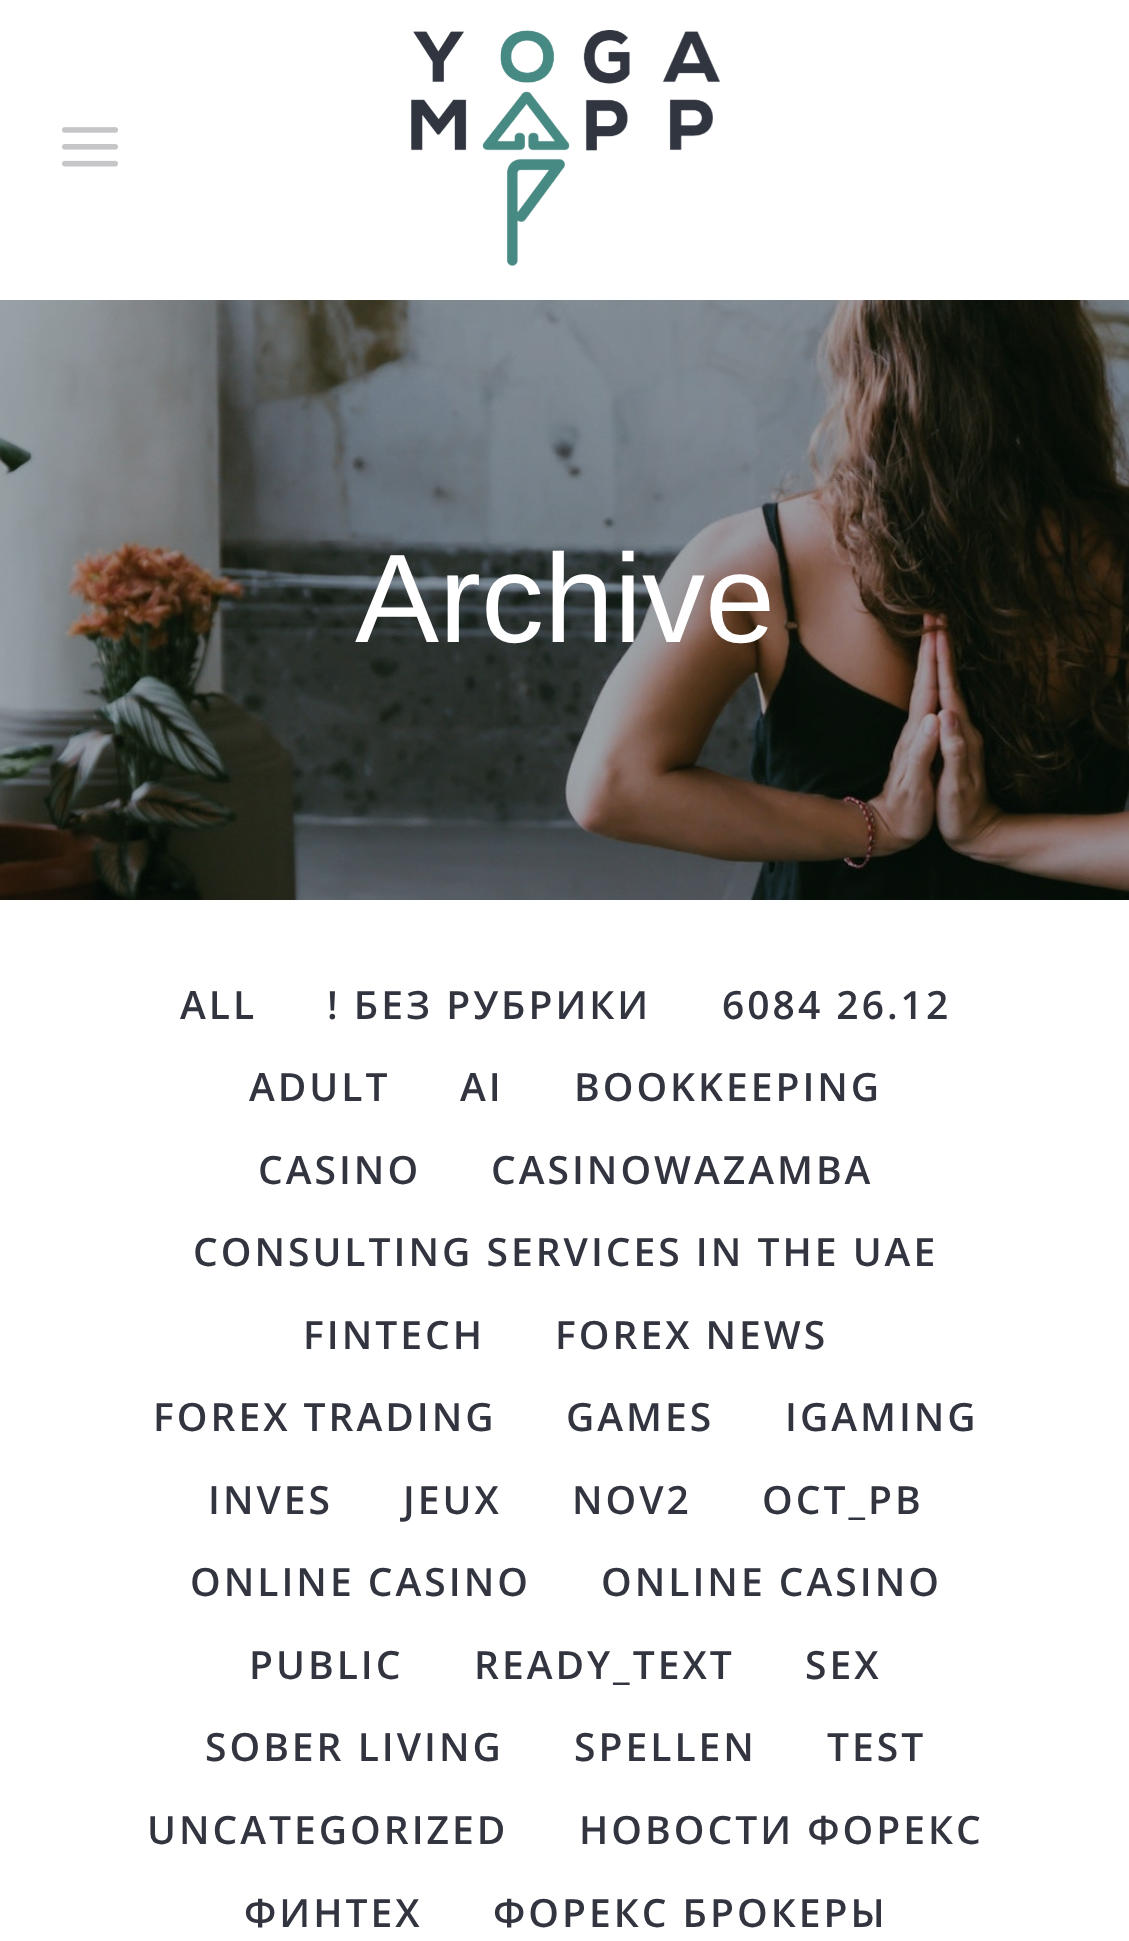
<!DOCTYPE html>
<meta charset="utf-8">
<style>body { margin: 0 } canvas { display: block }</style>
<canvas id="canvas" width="1129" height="1941"></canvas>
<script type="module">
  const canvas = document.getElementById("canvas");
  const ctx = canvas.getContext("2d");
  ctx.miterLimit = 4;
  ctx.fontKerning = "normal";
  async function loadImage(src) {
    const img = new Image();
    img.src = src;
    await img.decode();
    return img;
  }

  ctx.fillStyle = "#ffffff";
  ctx.fillRect(0, 0, 1129, 1941);
  ctx.drawImage(await loadImage("img1.png"), 62, 127, 56, 40);
  ctx.drawImage(await loadImage("img2.png"), 411, 30, 310, 236);
  ctx.drawImage(await loadImage("img3.png"), 0, 300, 1129, 600);
  ctx.font = "126px Liberation Sans";
  ctx.fillText("Archive", 355, 642);
  ctx.letterSpacing = "3px";
  ctx.font = "600 39px Open Sans";
  ctx.fillStyle = "#32353f";
  ctx.fillText("ALL", 180, 1019);
  ctx.fillText("! БЕЗ РУБРИКИ", 327, 1019);
  ctx.fillText("6084 26.12", 722, 1019);
  ctx.fillText("ADULT", 249, 1101);
  ctx.fillText("AI", 460, 1101);
  ctx.fillText("BOOKKEEPING", 574, 1101);
  ctx.fillText("CASINO", 258, 1184);
  ctx.fillText("CASINOWAZAMBA", 491, 1184);
  ctx.fillText("CONSULTING SERVICES IN THE UAE", 193, 1266);
  ctx.fillText("FINTECH", 303, 1349);
  ctx.fillText("FOREX NEWS", 555, 1349);
  ctx.fillText("FOREX TRADING", 153, 1431);
  ctx.fillText("GAMES", 566, 1431);
  ctx.fillText("IGAMING", 785, 1431);
  ctx.fillText("INVES", 208, 1514);
  ctx.fillText("JEUX", 403, 1514);
  ctx.fillText("NOV2", 572, 1514);
  ctx.fillText("OCT_PB", 762, 1514);
  ctx.fillText("ONLINE CASINO", 190, 1596);
  ctx.fillText("ONLINE CASINO", 601, 1596);
  ctx.fillText("PUBLIC", 249, 1679);
  ctx.fillText("READY_TEXT", 474, 1679);
  ctx.fillText("SEX", 805, 1679);
  ctx.fillText("SOBER LIVING", 205, 1761);
  ctx.fillText("SPELLEN", 574, 1761);
  ctx.fillText("TEST", 827, 1761);
  ctx.fillText("UNCATEGORIZED", 147, 1844);
  ctx.fillText("НОВОСТИ ФОРЕКС", 579, 1844);
  ctx.fillText("ФИНТЕХ", 244, 1927);
  ctx.fillText("ФОРЕКС БРОКЕРЫ", 493, 1927);
</script>
